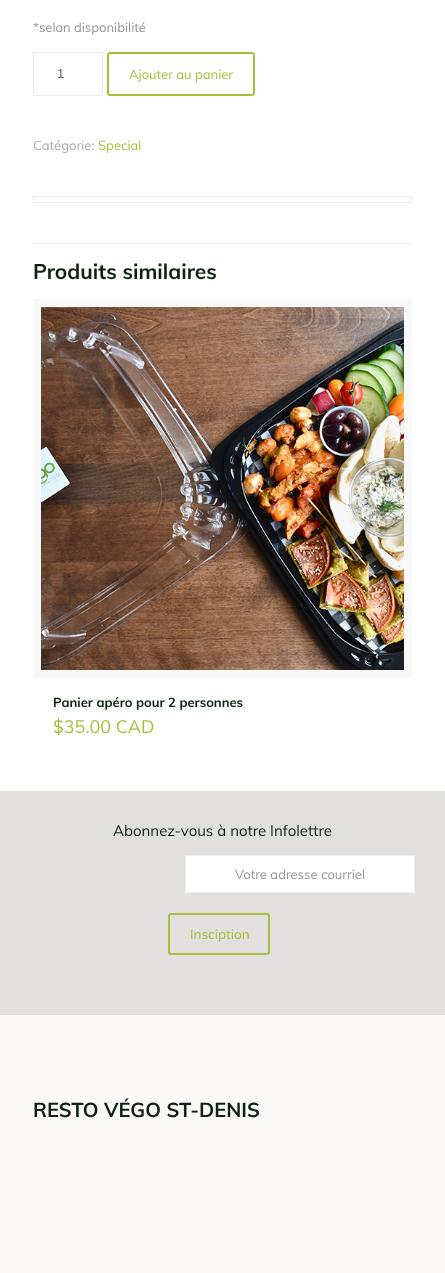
<!DOCTYPE html>
<meta charset="utf-8">
<style>body { margin: 0 } canvas { display: block }</style>
<canvas id="canvas" width="445" height="1273"></canvas>
<script type="module">
  const canvas = document.getElementById("canvas");
  const ctx = canvas.getContext("2d");
  ctx.miterLimit = 4;
  ctx.fontKerning = "normal";
  async function loadImage(src) {
    const img = new Image();
    img.src = src;
    await img.decode();
    return img;
  }

  ctx.fillStyle = "#ffffff";
  ctx.fillRect(0, 0, 445, 1273);
  ctx.font = "13px Muli";
  ctx.fillStyle = "#959595";
  ctx.fillText("*selon disponibilité", 33, 32);
  ctx.strokeStyle = "#ebebeb";
  ctx.strokeRect(33.5, 52.5, 69, 43);
  ctx.font = "13px Liberation Sans";
  ctx.fillStyle = "#626262";
  ctx.fillText("1", 57, 78);
  ctx.beginPath();
  ctx.roundRect(108, 53, 146, 42, 2);
  ctx.strokeStyle = "#a5bf3a";
  ctx.lineWidth = 2;
  ctx.stroke();
  ctx.font = "13px Muli";
  ctx.fillStyle = "#a5bf3a";
  ctx.fillText("Ajouter au panier", 129, 79);
  ctx.fillStyle = "#a8a8a8";
  ctx.fillText("Catégorie:", 33, 150);
  ctx.fillStyle = "#a5bf3a";
  ctx.fillText("Special", 98, 150);
  ctx.strokeStyle = "#ebebeb";
  ctx.lineWidth = 1;
  ctx.strokeRect(33.5, 196.5, 378, 6);
  ctx.fillStyle = "#ebebeb";
  ctx.fillRect(33, 243, 379, 1);
  ctx.font = "bold 21px Muli";
  ctx.fillStyle = "#102111";
  ctx.fillText("Produits similaires", 33, 279);
  ctx.strokeStyle = "#f8f8f8";
  ctx.lineWidth = 8;
  ctx.strokeRect(37, 303, 371, 371);
  ctx.drawImage(await loadImage("img1.png"), 41, 307, 363, 363);
  ctx.font = "bold 13px Muli";
  ctx.fillText("Panier apéro pour 2 personnes", 53, 707);
  ctx.font = "18px Muli";
  ctx.fillStyle = "#a5bf3a";
  ctx.fillText("$35.00 CAD", 53, 733);
  ctx.fillStyle = "#faf9f7";
  ctx.fillRect(0, 1015, 445, 258);
  ctx.fillStyle = "#e1e0df";
  ctx.fillRect(0, 791, 445, 224);
  ctx.font = "15px Muli";
  ctx.fillStyle = "#102111";
  ctx.fillText("Abonnez-vous à notre Infolettre", 113, 836);
  ctx.fillStyle = "#ffffff";
  ctx.beginPath();
  ctx.rect(185.5, 855.5, 229, 37);
  ctx.fill();
  ctx.strokeStyle = "#ebebeb";
  ctx.lineWidth = 1;
  ctx.stroke();
  ctx.font = "13px Muli";
  ctx.fillStyle = "#959595";
  ctx.fillText("Votre adresse courriel", 235, 879);
  ctx.beginPath();
  ctx.roundRect(169, 914, 100, 40, 2);
  ctx.strokeStyle = "#a5bf3a";
  ctx.lineWidth = 2;
  ctx.stroke();
  ctx.font = "13.5px Muli";
  ctx.fillStyle = "#a5bf3a";
  ctx.fillText("Insciption", 190, 939);
  ctx.font = "bold 20px Muli";
  ctx.fillStyle = "#102111";
  ctx.fillText("RESTO VÉGO ST-DENIS", 33, 1117);
</script>
